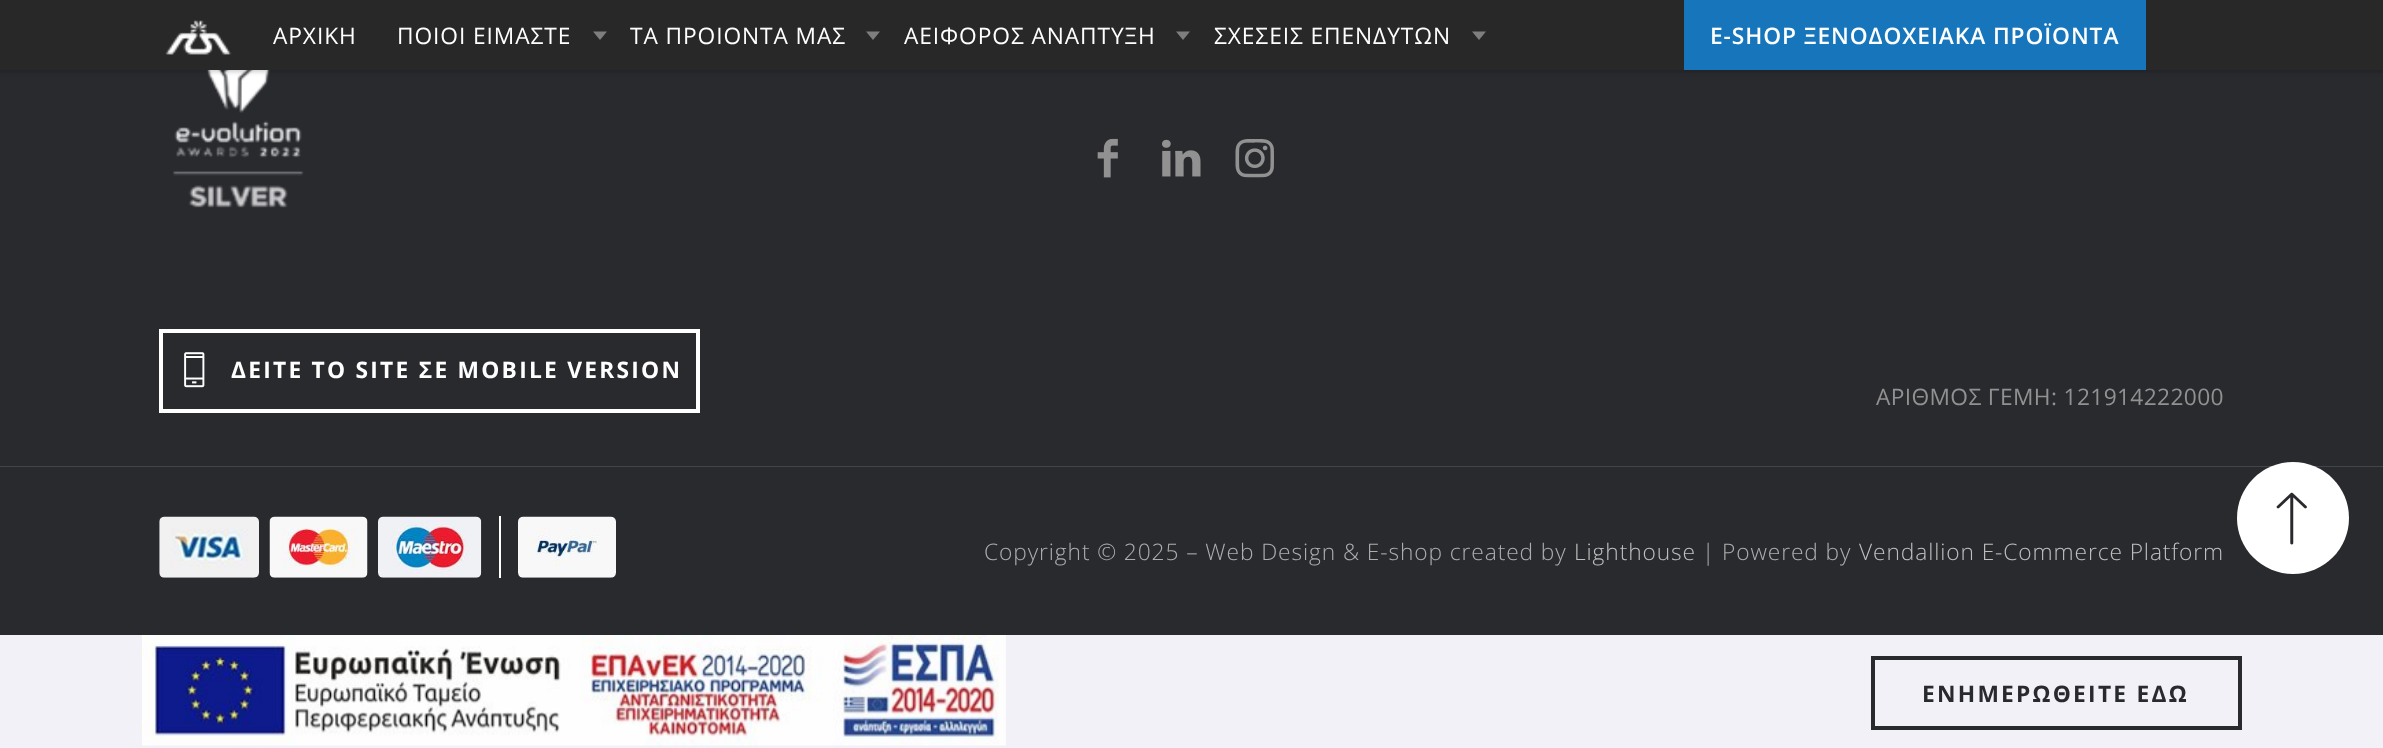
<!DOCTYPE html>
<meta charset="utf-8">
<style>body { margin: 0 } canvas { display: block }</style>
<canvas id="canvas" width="2383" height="748"></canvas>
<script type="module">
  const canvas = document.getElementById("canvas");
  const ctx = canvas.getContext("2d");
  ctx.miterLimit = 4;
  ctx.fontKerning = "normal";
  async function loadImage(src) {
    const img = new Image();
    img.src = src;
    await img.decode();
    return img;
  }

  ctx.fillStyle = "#292a2e";
  ctx.fillRect(0, 0, 2383, 748);
  ctx.drawImage(await loadImage("img2.png"), 173, 70, 131, 138);
  ctx.fillStyle = "rgba(0, 0, 0, 0.19)";
  ctx.filter = "blur(2px)";
  ctx.beginPath();
  ctx.rect(-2, -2, 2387, 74);
  ctx.fill();
  ctx.filter = "none";
  ctx.fillStyle = "#282828";
  ctx.fillRect(0, 0, 2383, 70);
  ctx.drawImage(await loadImage("img1.png"), 165, 20, 67, 35);
  ctx.letterSpacing = "0.9px";
  ctx.font = "22.75px Open Sans";
  ctx.fillStyle = "#ffffff";
  ctx.fillText("ΑΡΧΙΚΗ", 273, 44);
  ctx.fillText("ΠΟΙΟΙ ΕΙΜΑΣΤΕ", 397, 44);
  ctx.fillStyle = "#7e7e7e";
  ctx.beginPath();
  ctx.moveTo(593, 31.5);
  ctx.lineTo(607, 31.5);
  ctx.lineTo(600, 40);
  ctx.closePath();
  ctx.fill();
  ctx.fillStyle = "#ffffff";
  ctx.fillText("ΤΑ ΠΡΟΙΟΝΤΑ ΜΑΣ", 630, 44);
  ctx.fillStyle = "#7e7e7e";
  ctx.beginPath();
  ctx.moveTo(866, 31.5);
  ctx.lineTo(880, 31.5);
  ctx.lineTo(873, 40);
  ctx.closePath();
  ctx.fill();
  ctx.fillStyle = "#ffffff";
  ctx.fillText("ΑΕΙΦΟΡΟΣ ΑΝΑΠΤΥΞΗ", 904, 44);
  ctx.fillStyle = "#7e7e7e";
  ctx.beginPath();
  ctx.moveTo(1176, 31.5);
  ctx.lineTo(1190, 31.5);
  ctx.lineTo(1183, 40);
  ctx.closePath();
  ctx.fill();
  ctx.fillStyle = "#ffffff";
  ctx.fillText("ΣΧΕΣΕΙΣ ΕΠΕΝΔΥΤΩΝ", 1214, 44);
  ctx.fillStyle = "#7e7e7e";
  ctx.beginPath();
  ctx.moveTo(1472, 31.5);
  ctx.lineTo(1486, 31.5);
  ctx.lineTo(1479, 40);
  ctx.closePath();
  ctx.fill();
  ctx.fillStyle = "#1775bb";
  ctx.fillRect(1684, 0, 462, 70);
  ctx.font = "600 22.75px Open Sans";
  ctx.fillStyle = "#ffffff";
  ctx.fillText("E-SHOP ΞΕΝΟΔΟΧΕΙΑΚΑ ΠΡΟΪΟΝΤΑ", 1710, 44);
  ctx.fillStyle = "#434449";
  ctx.fillRect(0, 466, 2383, 1);
  ctx.drawImage(await loadImage("img3.png"), 1097, 138, 21, 40);
  ctx.drawImage(await loadImage("img4.png"), 1162, 139, 39, 38);
  ctx.drawImage(await loadImage("img5.png"), 1235, 139, 39, 39);
  ctx.strokeStyle = "#ffffff";
  ctx.lineWidth = 4;
  ctx.strokeRect(161, 331, 537, 80);
  ctx.drawImage(await loadImage("img6.png"), 184, 352, 21, 36);
  ctx.letterSpacing = "2.25px";
  ctx.font = "bold 22.75px Open Sans";
  ctx.fillStyle = "#ffffff";
  ctx.fillText("ΔΕΙΤΕ ΤΟ SITE ΣΕ MOBILE VERSION", 231, 378);
  ctx.letterSpacing = "0.35px";
  ctx.font = "22.75px Open Sans";
  ctx.fillStyle = "#919191";
  ctx.fillText("ΑΡΙΘΜΟΣ ΓΕΜΗ: 121914222000", 1876, 405);
  ctx.drawImage(await loadImage("img7.png"), 159, 516, 100, 62);
  ctx.drawImage(await loadImage("img8.png"), 269, 516, 99, 62);
  ctx.drawImage(await loadImage("img9.png"), 378, 516, 104, 62);
  ctx.fillStyle = "#ffffff";
  ctx.fillRect(499, 516, 2, 62);
  ctx.drawImage(await loadImage("img10.png"), 518, 516, 98, 62);
  ctx.letterSpacing = "0.9px";
  ctx.font = "300 22.75px Open Sans";
  ctx.fillStyle = "#adadad";
  ctx.fillText("Copyright © 2025 – Web Design & E-shop created by", 984, 560);
  ctx.fillStyle = "#bfbfbf";
  ctx.fillText("Lighthouse", 1574, 560);
  ctx.fillStyle = "#adadad";
  ctx.fillText("| Powered by", 1702, 560);
  ctx.fillStyle = "#bfbfbf";
  ctx.fillText("Vendallion E-Commerce Platform", 1859, 560);
  ctx.fillStyle = "#ffffff";
  ctx.beginPath();
  ctx.arc(2293, 518, 56, 0, Math.PI * 2);
  ctx.fill();
  ctx.drawImage(await loadImage("img11.png"), 2276, 492, 31, 53);
  ctx.fillStyle = "#f2f1f7";
  ctx.fillRect(0, 635, 2383, 113);
  ctx.drawImage(await loadImage("img12.png"), 142, 635, 864, 111);
  ctx.strokeStyle = "#292a2e";
  ctx.strokeRect(1873, 658, 367, 70);
  ctx.letterSpacing = "2.25px";
  ctx.font = "bold 22.75px Open Sans";
  ctx.fillStyle = "#292a2e";
  ctx.fillText("ΕΝΗΜΕΡΩΘΕΙΤΕ ΕΔΩ", 1922, 702);
</script>
